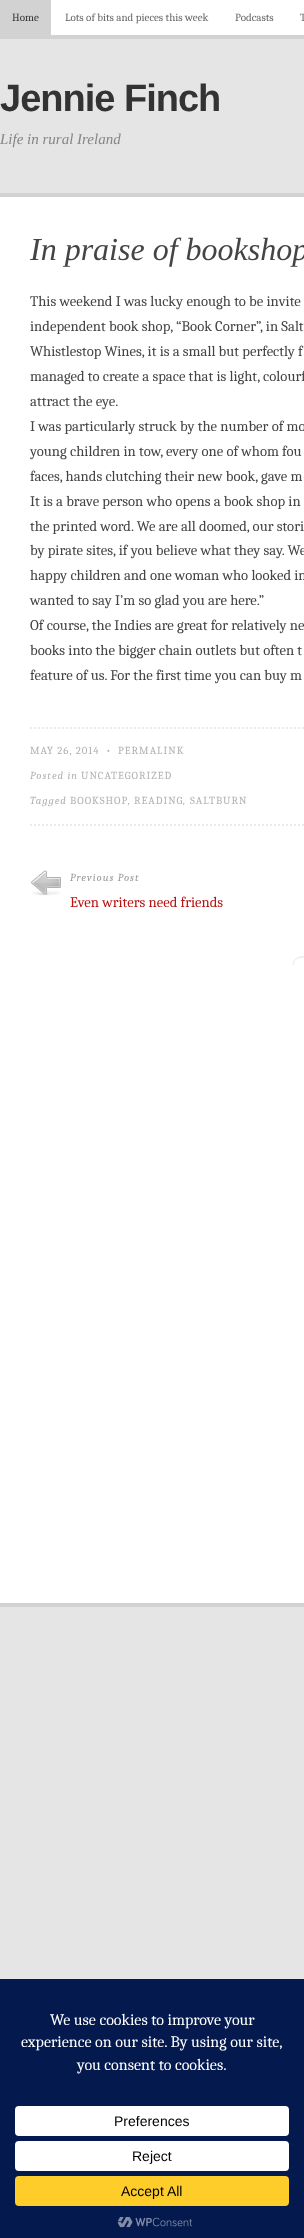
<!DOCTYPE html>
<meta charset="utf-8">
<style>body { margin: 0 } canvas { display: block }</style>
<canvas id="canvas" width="304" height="2238"></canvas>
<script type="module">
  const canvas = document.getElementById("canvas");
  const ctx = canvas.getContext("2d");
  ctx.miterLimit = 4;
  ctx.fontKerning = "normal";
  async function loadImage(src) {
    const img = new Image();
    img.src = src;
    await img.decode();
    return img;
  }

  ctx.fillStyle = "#e5e5e5";
  ctx.fillRect(0, 0, 304, 2238);
  ctx.fillStyle = "#ffffff";
  ctx.fillRect(51, 0, 253, 35);
  ctx.fillStyle = "#d2d2d2";
  ctx.fillRect(0, 35, 304, 4);
  ctx.fillRect(0, 0, 51, 35);
  ctx.font = "11px Caladea";
  ctx.fillStyle = "#333333";
  ctx.fillText("Home", 12, 21);
  ctx.fillStyle = "#666666";
  ctx.fillText("Lots of bits and pieces this week", 65, 21);
  ctx.fillText("Podcasts", 235, 21);
  ctx.fillText("T", 300, 21);
  ctx.letterSpacing = "-1px";
  ctx.font = "bold 38px Liberation Sans";
  ctx.fillStyle = "#333333";
  ctx.fillText("Jennie Finch", 0, 111);
  ctx.letterSpacing = "0px";
  ctx.font = "italic 15px Liberation Serif";
  ctx.fillStyle = "#858585";
  ctx.fillText("Life in rural Ireland", 0, 144);
  ctx.fillStyle = "#ffffff";
  ctx.fillRect(0, 197, 304, 1406);
  ctx.fillStyle = "#d2d2d2";
  ctx.fillRect(0, 193, 304, 4);
  ctx.fillRect(0, 1603, 304, 4);
  ctx.font = "italic 32px Liberation Serif";
  ctx.fillStyle = "#444444";
  ctx.fillText("In praise of bookshop", 30, 260);
  ctx.font = "14.7px Caladea";
  ctx.fillText("This weekend I was lucky enough to be invite", 30, 306);
  ctx.fillText("independent book shop, “Book Corner”, in Salt", 30, 331);
  ctx.fillText("Whistlestop Wines, it is a small but perfectly f", 30, 356);
  ctx.fillText("managed to create a space that is light, colourf", 30, 381);
  ctx.fillText("attract the eye.", 30, 406);
  ctx.fillText("I was particularly struck by the number of mo", 30, 431);
  ctx.fillText("young children in tow, every one of whom fou", 30, 456);
  ctx.fillText("faces, hands clutching their new book, gave m", 30, 481);
  ctx.fillText("It is a brave person who opens a book shop in", 30, 506);
  ctx.fillText("the printed word. We are all doomed, our stori", 30, 531);
  ctx.fillText("by pirate sites, if you believe what they say. We", 30, 555);
  ctx.fillText("happy children and one woman who looked in", 30, 580);
  ctx.fillText("wanted to say I’m so glad you are here.”", 30, 605);
  ctx.fillText("Of course, the Indies are great for relatively ne", 30, 630);
  ctx.fillText("books into the bigger chain outlets but often t", 30, 655);
  ctx.fillText("feature of us. For the first time you can buy m", 30, 680);
  ctx.beginPath();
  ctx.moveTo(30, 728);
  ctx.lineTo(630, 728);
  ctx.strokeStyle = "#eaeaea";
  ctx.lineWidth = 2;
  ctx.setLineDash([2, 2]);
  ctx.stroke();
  ctx.beginPath();
  ctx.moveTo(30, 825);
  ctx.lineTo(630, 825);
  ctx.stroke();
  ctx.letterSpacing = "1px";
  ctx.font = "10.75px Caladea";
  ctx.fillStyle = "#b1b1b1";
  ctx.fillText("MAY 26, 2014", 30, 754);
  ctx.font = "italic 10.75px Caladea";
  ctx.fillText("•", 106, 754);
  ctx.font = "10.75px Caladea";
  ctx.fillText("PERMALINK", 118, 754);
  ctx.font = "italic 10.75px Caladea";
  ctx.fillText("Posted in", 30, 779);
  ctx.font = "10.75px Caladea";
  ctx.fillText("UNCATEGORIZED", 81, 779);
  ctx.font = "italic 10.75px Caladea";
  ctx.fillText("Tagged", 30, 804);
  ctx.font = "10.75px Caladea";
  ctx.fillText("BOOKSHOP", 70, 804);
  ctx.font = "italic 10.75px Caladea";
  ctx.fillText(",", 128, 804);
  ctx.font = "10.75px Caladea";
  ctx.fillText("READING", 134, 804);
  ctx.font = "italic 10.75px Caladea";
  ctx.fillText(",", 183, 804);
  ctx.font = "10.75px Caladea";
  ctx.fillText("SALTBURN", 190, 804);
  ctx.drawImage(await loadImage("img1.png"), 31, 870, 30, 26);
  ctx.font = "italic 10.75px Caladea";
  ctx.fillStyle = "#999999";
  ctx.fillText("Previous Post", 70, 881);
  ctx.letterSpacing = "0px";
  ctx.font = "14.7px Caladea";
  ctx.fillStyle = "#b91313";
  ctx.fillText("Even writers need friends", 70, 907);
  ctx.drawImage(await loadImage("img2.png"), 293, 956, 11, 10);
  ctx.fillStyle = "#04194e";
  ctx.fillRect(0, 1979, 304, 259);
  ctx.font = "16px Caladea";
  ctx.fillStyle = "#ffffff";
  ctx.fillText("We use cookies to improve your", 50, 2025);
  ctx.fillText("experience on our site. By using our site,", 21, 2047);
  ctx.fillText("you consent to cookies.", 77, 2070);
  ctx.beginPath();
  ctx.roundRect(15, 2106, 274, 30, 4);
  ctx.fill();
  ctx.font = "14px Liberation Sans";
  ctx.fillStyle = "#000000";
  ctx.fillText("Preferences", 114, 2126);
  ctx.fillStyle = "#ffffff";
  ctx.beginPath();
  ctx.roundRect(15, 2141, 274, 30, 4);
  ctx.fill();
  ctx.fillStyle = "#000000";
  ctx.fillText("Reject", 132, 2161);
  ctx.fillStyle = "#ffcd2a";
  ctx.beginPath();
  ctx.roundRect(15, 2176, 274, 30, 4);
  ctx.fill();
  ctx.fillStyle = "#000000";
  ctx.fillText("Accept All", 121, 2196);
  ctx.drawImage(await loadImage("img3.png"), 117, 2217, 75, 11);
</script>
